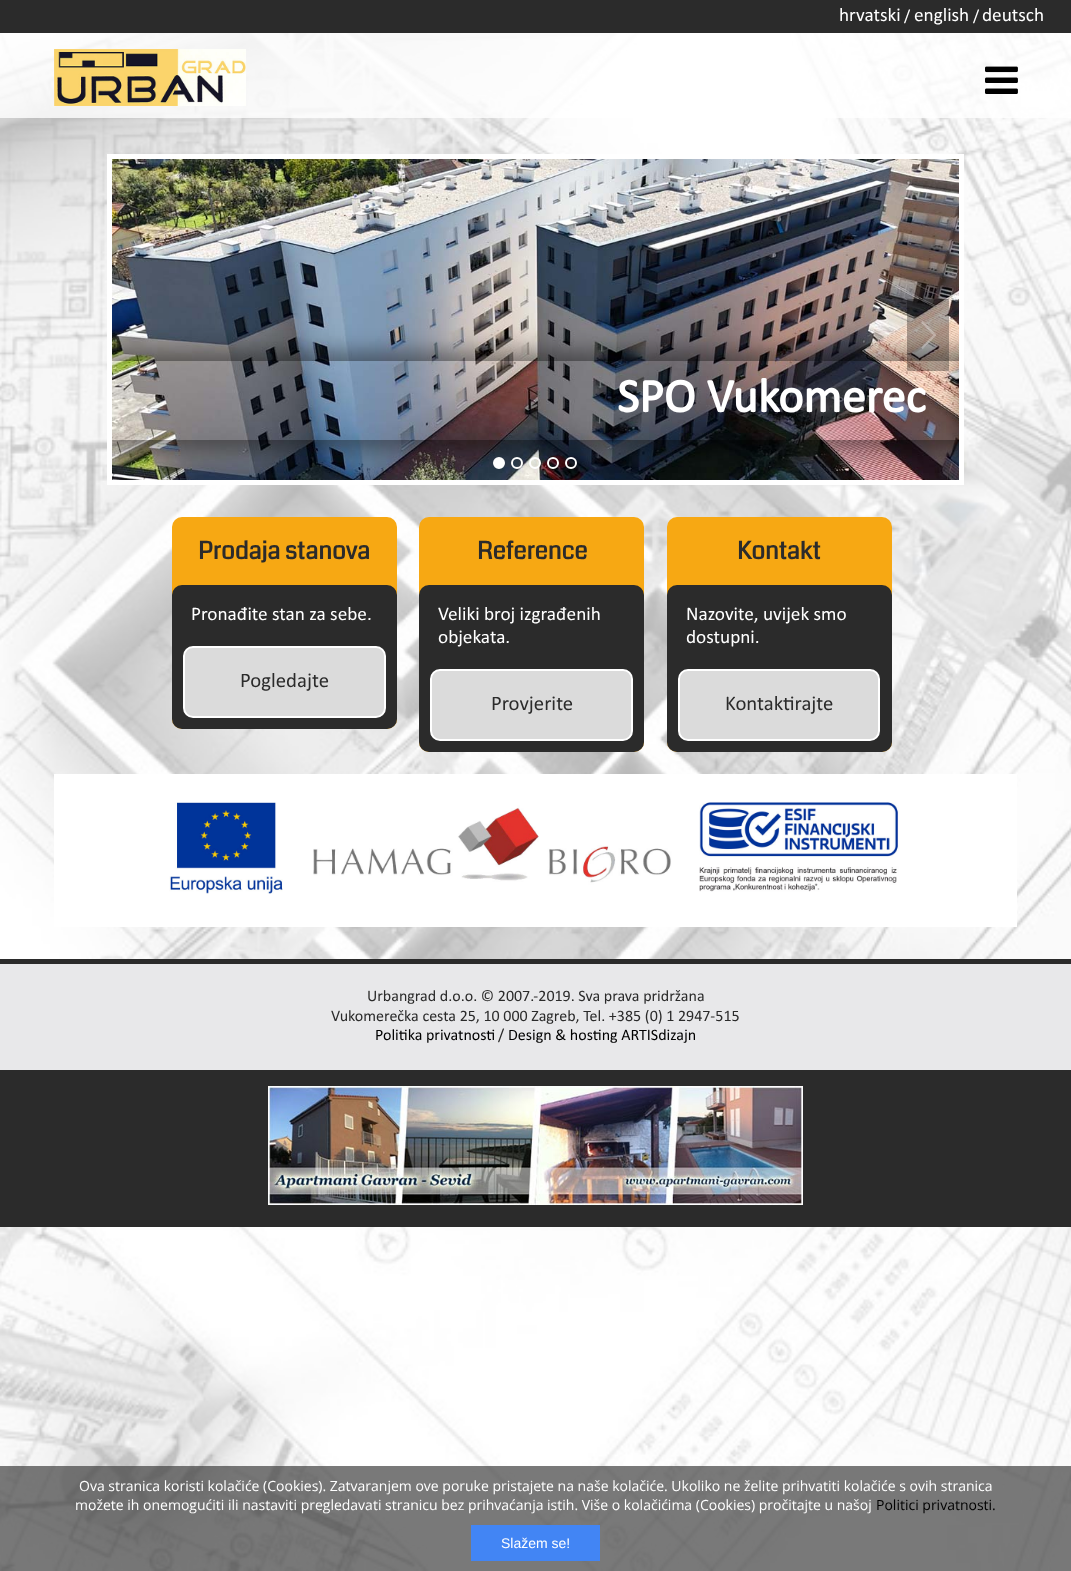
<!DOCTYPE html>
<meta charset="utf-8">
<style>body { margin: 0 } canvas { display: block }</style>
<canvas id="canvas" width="1071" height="1571"></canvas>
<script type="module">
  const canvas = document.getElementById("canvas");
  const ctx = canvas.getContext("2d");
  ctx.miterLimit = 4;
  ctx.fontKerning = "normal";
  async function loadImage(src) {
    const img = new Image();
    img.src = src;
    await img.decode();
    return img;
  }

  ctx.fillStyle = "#ffffff";
  ctx.fillRect(0, 0, 1071, 1571);
  ctx.drawImage(await loadImage("img1.png"), 0, 33, 1071, 1538);
  ctx.fillStyle = "#2b2b2b";
  ctx.fillRect(0, 0, 1071, 33);
  ctx.font = "19.25px Calibri";
  ctx.fillStyle = "#ffffff";
  ctx.fillText("hrvatski", 839, 21);
  ctx.font = "16px Calibri";
  ctx.fillText("/", 904, 21);
  ctx.font = "19.25px Calibri";
  ctx.fillText("english", 914, 21);
  ctx.font = "16px Calibri";
  ctx.fillText("/", 973, 21);
  ctx.font = "19.25px Calibri";
  ctx.fillText("deutsch", 982, 21);
  ctx.fillStyle = "rgba(255, 255, 255, 0.8)";
  ctx.fillRect(0, 33, 1071, 85);
  ctx.drawImage(await loadImage("img2.png"), 54, 49, 192, 57);
  ctx.drawImage(await loadImage("img3.png"), 985, 66, 33, 28);
  ctx.strokeStyle = "#ffffff";
  ctx.lineWidth = 5;
  ctx.strokeRect(109.5, 156.5, 852, 326);
  ctx.drawImage(await loadImage("img5.png"), 112, 159, 847, 321);
  ctx.save();
  ctx.beginPath();
  ctx.rect(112, 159, 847, 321);
  ctx.clip();
  ctx.beginPath();
  ctx.moveTo(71, 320);
  ctx.lineTo(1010, 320);
  ctx.lineTo(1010, 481);
  ctx.lineTo(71, 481);
  ctx.closePath();
  ctx.moveTo(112, 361);
  ctx.lineTo(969, 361);
  ctx.lineTo(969, 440);
  ctx.lineTo(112, 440);
  ctx.closePath();
  ctx.clip("evenodd");
  ctx.fillStyle = "rgba(0, 0, 0, 0.4)";
  ctx.filter = "blur(10px)";
  ctx.beginPath();
  ctx.rect(102, 351, 877, 99);
  ctx.fill();
  ctx.filter = "none";
  ctx.restore();
  ctx.save();
  ctx.beginPath();
  ctx.rect(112, 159, 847, 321);
  ctx.clip();
  ctx.fillStyle = "rgba(0, 0, 0, 0.4)";
  ctx.filter = "blur(10px)";
  ctx.beginPath();
  ctx.rect(959, 351, 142, 99);
  ctx.fill();
  ctx.filter = "none";
  ctx.restore();
  ctx.fillStyle = "rgba(0, 0, 0, 0.3)";
  ctx.beginPath();
  ctx.roundRect(907, 299, 42, 72, 1);
  ctx.fill();
  ctx.drawImage(await loadImage("img4.png"), 921, 321, 15, 28);
  ctx.font = "bold 48px Calibri";
  ctx.fillStyle = "#ffffff";
  ctx.fillText("SPO Vukomerec", 617, 412);
  ctx.beginPath();
  ctx.arc(499, 463, 5, 0, Math.PI * 2);
  ctx.fill();
  ctx.lineWidth = 2;
  ctx.stroke();
  ctx.beginPath();
  ctx.arc(517, 463, 5, 0, Math.PI * 2);
  ctx.stroke();
  ctx.beginPath();
  ctx.arc(535, 463, 5, 0, Math.PI * 2);
  ctx.stroke();
  ctx.beginPath();
  ctx.arc(553, 463, 5, 0, Math.PI * 2);
  ctx.stroke();
  ctx.beginPath();
  ctx.arc(571, 463, 5, 0, Math.PI * 2);
  ctx.stroke();
  ctx.fillStyle = "#f7a813";
  ctx.beginPath();
  ctx.roundRect(172, 517, 225, 212, 10);
  ctx.fill();
  ctx.font = "bold 24px Coda";
  ctx.fillStyle = "#2b2b2b";
  ctx.fillText("Prodaja stanova", 198, 559);
  ctx.beginPath();
  ctx.roundRect(172, 585, 225, 144, 10);
  ctx.fill();
  ctx.font = "19.25px Calibri";
  ctx.fillStyle = "#ffffff";
  ctx.fillText("Pronađite stan za sebe.", 191, 620);
  ctx.fillStyle = "#dbdbdb";
  ctx.beginPath();
  ctx.roundRect(184, 647, 201, 70, 9);
  ctx.fill();
  ctx.stroke();
  ctx.font = "20.75px Calibri";
  ctx.fillStyle = "#2b2b2b";
  ctx.fillText("Pogledajte", 240, 687);
  ctx.fillStyle = "#f7a813";
  ctx.beginPath();
  ctx.roundRect(419, 517, 225, 235, 10);
  ctx.fill();
  ctx.font = "bold 24px Coda";
  ctx.fillStyle = "#2b2b2b";
  ctx.fillText("Reference", 477, 559);
  ctx.beginPath();
  ctx.roundRect(419, 585, 225, 167, 10);
  ctx.fill();
  ctx.font = "19.25px Calibri";
  ctx.fillStyle = "#ffffff";
  ctx.fillText("Veliki broj izgrađenih", 438, 620);
  ctx.fillText("objekata.", 438, 643);
  ctx.fillStyle = "#dbdbdb";
  ctx.beginPath();
  ctx.roundRect(431, 670, 201, 70, 9);
  ctx.fill();
  ctx.stroke();
  ctx.font = "20.75px Calibri";
  ctx.fillStyle = "#2b2b2b";
  ctx.fillText("Provjerite", 491, 710);
  ctx.fillStyle = "#f7a813";
  ctx.beginPath();
  ctx.roundRect(667, 517, 225, 235, 10);
  ctx.fill();
  ctx.font = "bold 24px Coda";
  ctx.fillStyle = "#2b2b2b";
  ctx.fillText("Kontakt", 737, 559);
  ctx.beginPath();
  ctx.roundRect(667, 585, 225, 167, 10);
  ctx.fill();
  ctx.font = "19.25px Calibri";
  ctx.fillStyle = "#ffffff";
  ctx.fillText("Nazovite, uvijek smo", 686, 620);
  ctx.fillText("dostupni.", 686, 643);
  ctx.fillStyle = "#dbdbdb";
  ctx.beginPath();
  ctx.roundRect(679, 670, 200, 70, 9);
  ctx.fill();
  ctx.stroke();
  ctx.font = "20.75px Calibri";
  ctx.fillStyle = "#2b2b2b";
  ctx.fillText("Kontaktirajte", 725, 710);
  ctx.fillStyle = "#ffffff";
  ctx.fillRect(54, 774, 963, 153);
  ctx.drawImage(await loadImage("img6.png"), 169, 802, 730, 92);
  ctx.fillStyle = "#e8e8ea";
  ctx.fillRect(0, 964, 1071, 106);
  ctx.fillStyle = "#2b2b2b";
  ctx.fillRect(0, 959, 1071, 5);
  ctx.font = "16px Calibri";
  ctx.fillText("Urbangrad d.o.o. © 2007.-2019. Sva prava pridržana", 367, 1001);
  ctx.fillText("Vukomerečka cesta 25, 10 000 Zagreb, Tel. +385 (0) 1 2947-515", 331, 1021);
  ctx.fillStyle = "#000000";
  ctx.fillText("Politika privatnosti", 375, 1040);
  ctx.fillStyle = "#2b2b2b";
  ctx.fillText("/", 498, 1040);
  ctx.fillStyle = "#000000";
  ctx.fillText("Design & hosting ARTISdizajn", 508, 1040);
  ctx.fillStyle = "#2b2b2b";
  ctx.fillRect(0, 1070, 1071, 157);
  ctx.drawImage(await loadImage("img7.png"), 268, 1086, 535, 119);
  ctx.fillStyle = "rgba(64, 64, 64, 0.7)";
  ctx.fillRect(0, 1466, 1071, 105);
  ctx.font = "14px Open Sans";
  ctx.fillStyle = "#ffffff";
  ctx.fillText("Ova stranica koristi kolačiće (Cookies). Zatvaranjem ove poruke pristajete na naše kolačiće. Ukoliko ne želite prihvatiti kolačiće s ovih stranica", 79, 1491);
  ctx.fillText("možete ih onemogućiti ili nastaviti pregledavati stranicu bez prihvaćanja istih. Više o kolačićima (Cookies) pročitajte u našoj", 75, 1510);
  ctx.fillStyle = "#000000";
  ctx.fillText("Politici privatnosti.", 876, 1510);
  ctx.fillStyle = "#4285f4";
  ctx.fillRect(471, 1525, 129, 36);
  ctx.font = "14px Liberation Sans";
  ctx.fillStyle = "#ffffff";
  ctx.fillText("Slažem se!", 501, 1548);
</script>
